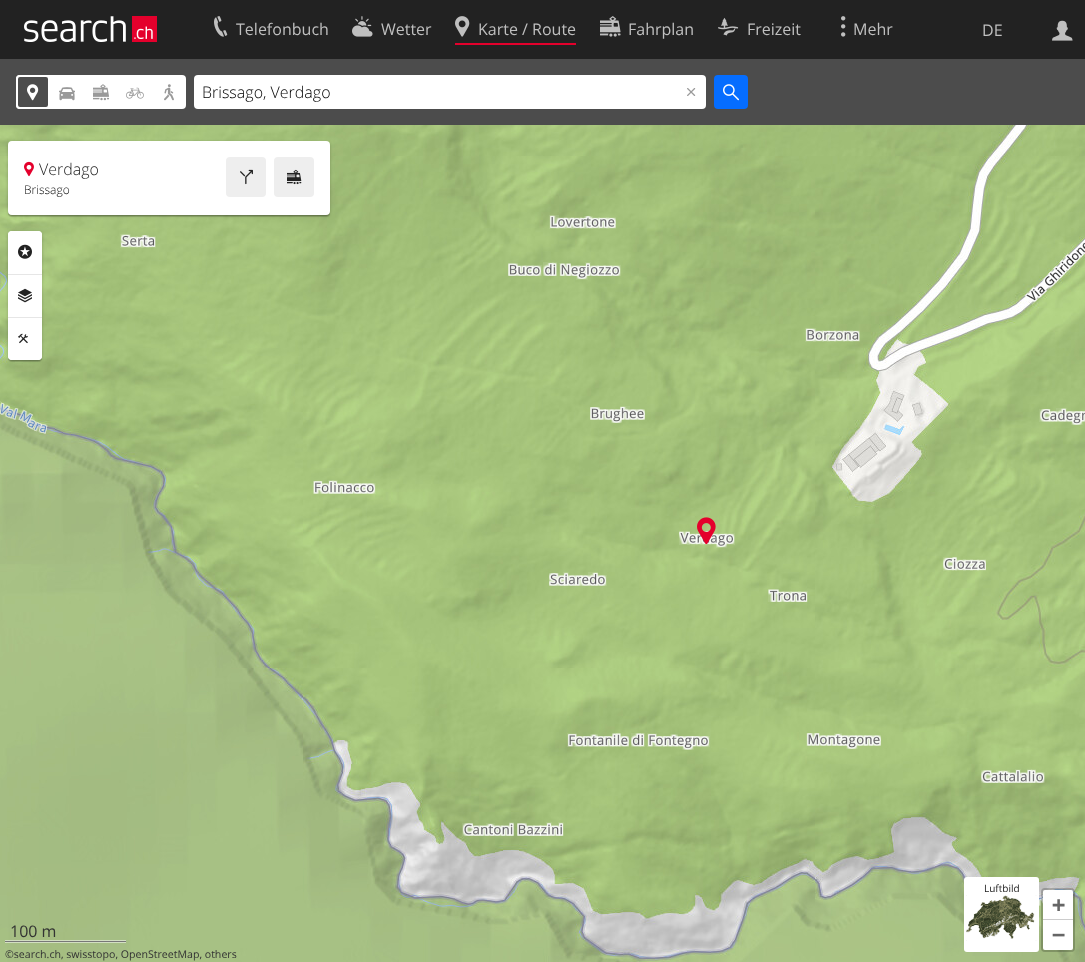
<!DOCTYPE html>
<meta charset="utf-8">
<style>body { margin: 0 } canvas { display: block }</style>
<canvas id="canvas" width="1085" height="962"></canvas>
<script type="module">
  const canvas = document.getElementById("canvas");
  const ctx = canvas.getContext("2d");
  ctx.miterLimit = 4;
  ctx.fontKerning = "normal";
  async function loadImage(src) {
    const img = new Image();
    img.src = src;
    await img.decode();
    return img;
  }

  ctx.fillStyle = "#ffffff";
  ctx.fillRect(0, 0, 1085, 962);
  ctx.fillStyle = "#222222";
  ctx.fillRect(0, 0, 1085, 59);
  ctx.drawImage(await loadImage("img1.png"), 24, 16, 133, 26);
  ctx.drawImage(await loadImage("img2.png"), 214, 16, 14, 21);
  ctx.font = "16px Open Sans";
  ctx.fillStyle = "#bfbfbf";
  ctx.fillText("Telefonbuch", 236, 35);
  ctx.drawImage(await loadImage("img3.png"), 352, 16, 21, 21);
  ctx.fillText("Wetter", 381, 35);
  ctx.fillStyle = "#e4002c";
  ctx.fillRect(455, 43, 121, 2);
  ctx.drawImage(await loadImage("img4.png"), 455, 16, 15, 21);
  ctx.fillStyle = "#bfbfbf";
  ctx.fillText("Karte / Route", 478, 35);
  ctx.drawImage(await loadImage("img5.png"), 600, 16, 21, 21);
  ctx.fillText("Fahrplan", 628, 35);
  ctx.drawImage(await loadImage("img6.png"), 718, 17, 21, 19);
  ctx.fillText("Freizeit", 747, 35);
  ctx.drawImage(await loadImage("img7.png"), 841, 16, 5, 21);
  ctx.fillText("Mehr", 853, 35);
  ctx.fillText("DE", 982, 36);
  ctx.drawImage(await loadImage("img8.png"), 1052, 20, 21, 21);
  ctx.fillStyle = "#4c4c4c";
  ctx.fillRect(0, 59, 1085, 66);
  ctx.fillStyle = "#ffffff";
  ctx.beginPath();
  ctx.roundRect(16, 75, 170, 34, 4);
  ctx.fill();
  ctx.fillStyle = "#4c4c4c";
  ctx.beginPath();
  ctx.roundRect(17, 76, 32, 32, 3);
  ctx.fill();
  ctx.strokeStyle = "#ffffff";
  ctx.lineWidth = 2;
  ctx.stroke();
  ctx.drawImage(await loadImage("img9.png"), 27, 84, 12, 17);
  ctx.drawImage(await loadImage("img10.png"), 59, 87, 16, 14);
  ctx.drawImage(await loadImage("img11.png"), 93, 84, 17, 17);
  ctx.drawImage(await loadImage("img12.png"), 126, 87, 18, 12);
  ctx.drawImage(await loadImage("img13.png"), 164, 84, 10, 17);
  ctx.fillStyle = "#ffffff";
  ctx.beginPath();
  ctx.roundRect(194, 75, 512, 34, 4);
  ctx.fill();
  ctx.font = "300 16px Open Sans";
  ctx.fillStyle = "#000000";
  ctx.fillText("Brissago, Verdago", 202, 98);
  ctx.drawImage(await loadImage("img14.png"), 687, 88, 9, 8);
  ctx.fillStyle = "#056dff";
  ctx.beginPath();
  ctx.roundRect(714, 75, 34, 34, 4);
  ctx.fill();
  ctx.drawImage(await loadImage("img15.png"), 723, 84, 16, 17);
  ctx.drawImage(await loadImage("img23.png"), 0, 125, 303, 31);
  ctx.drawImage(await loadImage("img24.png"), 303, 125, 512, 31);
  ctx.drawImage(await loadImage("img26.png"), 0, 156, 303, 512);
  ctx.drawImage(await loadImage("img27.png"), 303, 156, 512, 512);
  ctx.drawImage(await loadImage("img33.png"), 313, 215, 502, 387);
  ctx.save();
  ctx.beginPath();
  ctx.moveTo(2, 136);
  ctx.lineTo(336, 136);
  ctx.lineTo(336, 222);
  ctx.lineTo(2, 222);
  ctx.closePath();
  ctx.moveTo(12, 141);
  ctx.lineTo(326, 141);
  ctx.bezierCurveTo(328, 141, 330, 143, 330, 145);
  ctx.lineTo(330, 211);
  ctx.bezierCurveTo(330, 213, 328, 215, 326, 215);
  ctx.lineTo(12, 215);
  ctx.bezierCurveTo(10, 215, 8, 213, 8, 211);
  ctx.lineTo(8, 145);
  ctx.bezierCurveTo(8, 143, 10, 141, 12, 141);
  ctx.closePath();
  ctx.clip("evenodd");
  ctx.fillStyle = "rgba(0, 0, 0, 0.2)";
  ctx.filter = "blur(1.5px)";
  ctx.beginPath();
  ctx.roundRect(8, 142, 322, 74, 4);
  ctx.fill();
  ctx.filter = "none";
  ctx.restore();
  ctx.fillStyle = "rgba(0, 0, 0, 0.12)";
  ctx.filter = "blur(0.5px)";
  ctx.beginPath();
  ctx.roundRect(8, 143, 322, 74, 4);
  ctx.fill();
  ctx.filter = "none";
  ctx.fillStyle = "rgba(0, 0, 0, 0.14)";
  ctx.filter = "blur(0.5px)";
  ctx.beginPath();
  ctx.roundRect(8, 142, 322, 74, 4);
  ctx.fill();
  ctx.filter = "none";
  ctx.fillStyle = "#ffffff";
  ctx.beginPath();
  ctx.roundRect(8, 141, 322, 74, 4);
  ctx.fill();
  ctx.drawImage(await loadImage("img16.png"), 24, 161, 10, 16);
  ctx.fillStyle = "#222222";
  ctx.fillText("Verdago", 39, 175);
  ctx.fillStyle = "#eeeeee";
  ctx.beginPath();
  ctx.roundRect(226, 157, 40, 40, 4);
  ctx.fill();
  ctx.drawImage(await loadImage("img17.png"), 240, 169, 13, 16);
  ctx.beginPath();
  ctx.roundRect(274, 157, 40, 40, 4);
  ctx.fill();
  ctx.drawImage(await loadImage("img18.png"), 287, 169, 15, 16);
  ctx.font = "300 12px Open Sans";
  ctx.fillStyle = "#111111";
  ctx.fillText("Brissago", 24, 194);
  ctx.drawImage(await loadImage("img32.png"), 0, 234, 156, 200);
  ctx.save();
  ctx.beginPath();
  ctx.moveTo(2, 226);
  ctx.lineTo(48, 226);
  ctx.lineTo(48, 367);
  ctx.lineTo(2, 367);
  ctx.closePath();
  ctx.moveTo(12, 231);
  ctx.lineTo(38, 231);
  ctx.bezierCurveTo(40, 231, 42, 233, 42, 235);
  ctx.lineTo(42, 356);
  ctx.bezierCurveTo(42, 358, 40, 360, 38, 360);
  ctx.lineTo(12, 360);
  ctx.bezierCurveTo(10, 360, 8, 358, 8, 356);
  ctx.lineTo(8, 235);
  ctx.bezierCurveTo(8, 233, 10, 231, 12, 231);
  ctx.closePath();
  ctx.clip("evenodd");
  ctx.fillStyle = "rgba(0, 0, 0, 0.2)";
  ctx.filter = "blur(1.5px)";
  ctx.beginPath();
  ctx.roundRect(8, 232, 34, 129, 4);
  ctx.fill();
  ctx.filter = "none";
  ctx.restore();
  ctx.fillStyle = "rgba(0, 0, 0, 0.12)";
  ctx.filter = "blur(0.5px)";
  ctx.beginPath();
  ctx.roundRect(8, 233, 34, 129, 4);
  ctx.fill();
  ctx.filter = "none";
  ctx.fillStyle = "rgba(0, 0, 0, 0.14)";
  ctx.filter = "blur(0.5px)";
  ctx.beginPath();
  ctx.roundRect(8, 232, 34, 129, 4);
  ctx.fill();
  ctx.filter = "none";
  ctx.fillStyle = "#ffffff";
  ctx.beginPath();
  ctx.roundRect(8, 231, 34, 129, 4);
  ctx.fill();
  ctx.save();
  ctx.beginPath();
  ctx.roundRect(8, 231, 34, 129, 3);
  ctx.clip();
  ctx.beginPath();
  ctx.roundRect(8, 231, 34, 44, [4, 4, 0, 0]);
  ctx.fill();
  ctx.restore();
  ctx.fillStyle = "#e6e6e6";
  ctx.fillRect(8, 274, 34, 1);
  ctx.drawImage(await loadImage("img19.png"), 18, 244, 14, 15);
  ctx.fillRect(8, 317, 34, 1);
  ctx.drawImage(await loadImage("img20.png"), 18, 288, 14, 15);
  ctx.save();
  ctx.beginPath();
  ctx.roundRect(8, 231, 34, 129, 3);
  ctx.clip();
  ctx.fillStyle = "#ffffff";
  ctx.beginPath();
  ctx.roundRect(8, 318, 34, 42, [0, 0, 4, 4]);
  ctx.fill();
  ctx.restore();
  ctx.drawImage(await loadImage("img21.png"), 18, 333, 10, 11);
  ctx.drawImage(await loadImage("img31.png"), 815, 668, 270, 294);
  ctx.drawImage(await loadImage("img36.png"), 815, 733, 230, 173);
  ctx.fillStyle = "#ffffff";
  ctx.beginPath();
  ctx.roundRect(964, 877, 75, 75, 3);
  ctx.fill();
  ctx.drawImage(await loadImage("img22.png"), 966, 895, 71, 46);
  ctx.font = "10px Open Sans";
  ctx.fillStyle = "#222222";
  ctx.fillText("Luftbild", 984, 892);
  ctx.drawImage(await loadImage("img25.png"), 815, 125, 270, 31);
  ctx.drawImage(await loadImage("img28.png"), 815, 156, 270, 512);
  ctx.drawImage(await loadImage("img29.png"), 0, 668, 303, 294);
  ctx.drawImage(await loadImage("img30.png"), 303, 668, 512, 294);
  ctx.drawImage(await loadImage("img34.png"), 815, 241, 270, 330);
  ctx.drawImage(await loadImage("img35.png"), 462, 733, 353, 103);
  ctx.drawImage(await loadImage("img37.png"), 697, 517, 19, 28);
  ctx.beginPath();
  ctx.roundRect(1042, 889, 32, 62, 3);
  ctx.strokeStyle = "rgba(0, 0, 0, 0.2)";
  ctx.stroke();
  ctx.fillStyle = "#ffffff";
  ctx.beginPath();
  ctx.roundRect(1043, 890, 30, 30, [2, 2, 0, 0]);
  ctx.fill();
  ctx.fillStyle = "#cccccc";
  ctx.fillRect(1043, 919, 30, 1);
  ctx.font = "bold 22px DejaVu Sans Mono";
  ctx.fillStyle = "#666666";
  ctx.fillText("+", 1052, 912);
  ctx.fillStyle = "#ffffff";
  ctx.beginPath();
  ctx.roundRect(1043, 920, 30, 30, [0, 0, 2, 2]);
  ctx.fill();
  ctx.fillStyle = "#666666";
  ctx.fillText("−", 1052, 942);
  ctx.fillStyle = "rgba(255, 255, 255, 0.5)";
  ctx.fillRect(5, 942, 121, 1);
  ctx.fillRect(5, 940, 121, 1);
  ctx.fillStyle = "#777777";
  ctx.fillRect(5, 941, 121, 1);
  ctx.font = "16px Open Sans";
  ctx.fillStyle = "#333333";
  ctx.fillText("100 m", 10, 937);
  ctx.font = "10.6px Open Sans";
  ctx.fillText("©search.ch, swisstopo, OpenStreetMap, others", 5, 958);
</script>
